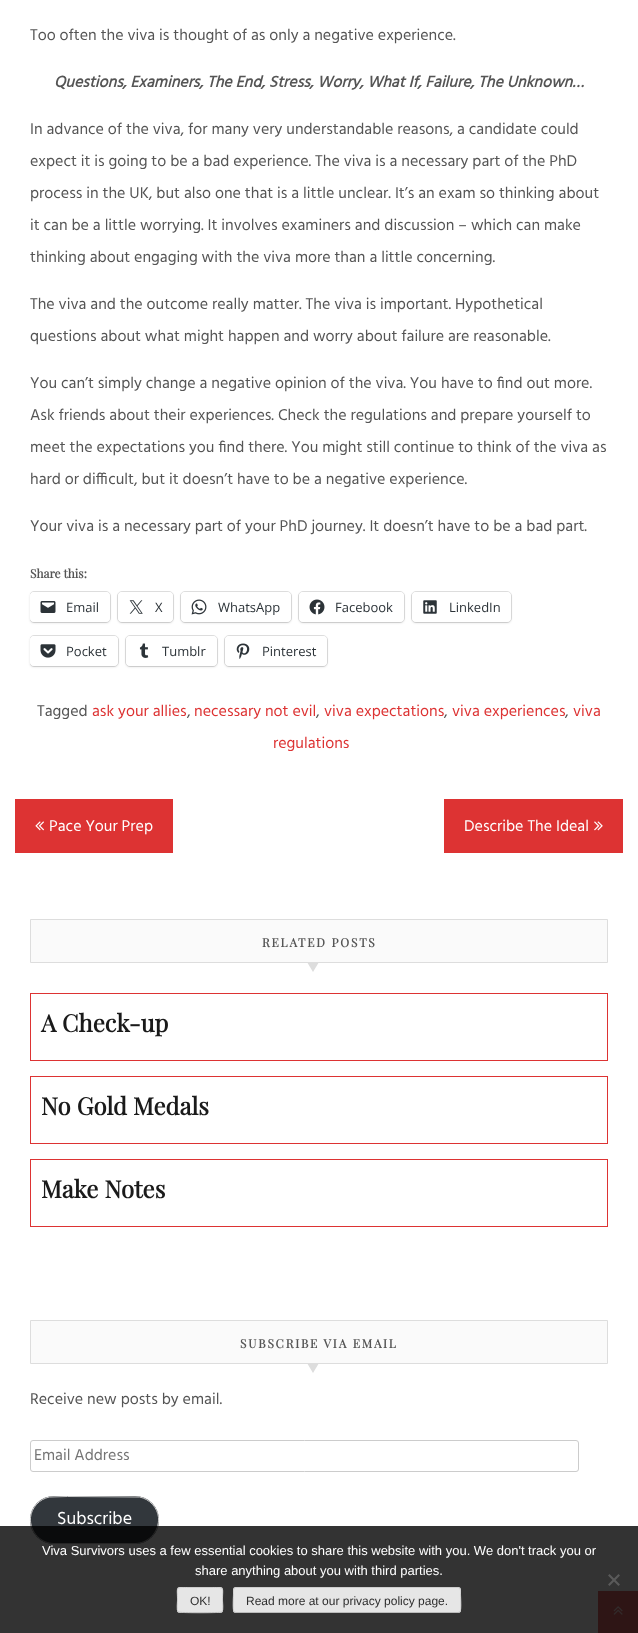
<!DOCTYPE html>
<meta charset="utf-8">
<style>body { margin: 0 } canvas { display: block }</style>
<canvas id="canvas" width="638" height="1633"></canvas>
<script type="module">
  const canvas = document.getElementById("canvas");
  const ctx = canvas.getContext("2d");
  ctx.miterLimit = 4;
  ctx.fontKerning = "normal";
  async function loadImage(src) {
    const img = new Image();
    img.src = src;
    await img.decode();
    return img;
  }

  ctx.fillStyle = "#ffffff";
  ctx.fillRect(0, 0, 638, 1633);
  ctx.font = "16px Hind";
  ctx.fillStyle = "#555555";
  ctx.fillText("Too often the viva is thought of as only a negative experience.", 30, 40);
  ctx.font = "italic bold 16px Hind";
  ctx.fillText("Questions, Examiners, The End, Stress, Worry, What If, Failure, The Unknown…", 54, 87);
  ctx.font = "16px Hind";
  ctx.fillText("In advance of the viva, for many very understandable reasons, a candidate could", 30, 134);
  ctx.fillText("expect it is going to be a bad experience. The viva is a necessary part of the PhD", 30, 166);
  ctx.fillText("process in the UK, but also one that is a little unclear. It’s an exam so thinking about", 30, 198);
  ctx.fillText("it can be a little worrying. It involves examiners and discussion – which can make", 30, 230);
  ctx.fillText("thinking about engaging with the viva more than a little concerning.", 30, 262);
  ctx.fillText("The viva and the outcome really matter. The viva is important. Hypothetical", 30, 309);
  ctx.fillText("questions about what might happen and worry about failure are reasonable.", 30, 341);
  ctx.fillText("You can’t simply change a negative opinion of the viva. You have to find out more.", 30, 388);
  ctx.fillText("Ask friends about their experiences. Check the regulations and prepare yourself to", 30, 420);
  ctx.fillText("meet the expectations you find there. You might still continue to think of the viva as", 30, 452);
  ctx.fillText("hard or difficult, but it doesn’t have to be a negative experience.", 30, 484);
  ctx.fillText("Your viva is a necessary part of your PhD journey. It doesn’t have to be a bad part.", 30, 531);
  ctx.font = "bold 12px Playfair Display";
  ctx.fillText("Share this:", 30, 578);
  ctx.save();
  ctx.beginPath();
  ctx.rect(30, 0, 578, 760);
  ctx.clip();
  ctx.beginPath();
  ctx.roundRect(29.5, 591.5, 81, 31, 4.5);
  ctx.strokeStyle = "#e0e0e0";
  ctx.stroke();
  ctx.restore();
  ctx.fillStyle = "rgba(0, 0, 0, 0.12)";
  ctx.filter = "blur(1px)";
  ctx.beginPath();
  ctx.roundRect(30, 593, 80, 30, 4);
  ctx.fill();
  ctx.filter = "none";
  ctx.fillStyle = "#ffffff";
  ctx.beginPath();
  ctx.roundRect(30, 592, 80, 30, 4);
  ctx.fill();
  ctx.drawImage(await loadImage("img1.png"), 40, 601, 16, 12);
  ctx.font = "13px Open Sans";
  ctx.fillStyle = "#2c3338";
  ctx.fillText("Email", 66, 612);
  ctx.beginPath();
  ctx.roundRect(117.5, 591.5, 56, 31, 4.5);
  ctx.strokeStyle = "#e0e0e0";
  ctx.stroke();
  ctx.fillStyle = "rgba(0, 0, 0, 0.12)";
  ctx.filter = "blur(1px)";
  ctx.beginPath();
  ctx.roundRect(118, 593, 55, 30, 4);
  ctx.fill();
  ctx.filter = "none";
  ctx.fillStyle = "#ffffff";
  ctx.beginPath();
  ctx.roundRect(118, 592, 55, 30, 4);
  ctx.fill();
  ctx.drawImage(await loadImage("img2.png"), 129, 600, 14, 14);
  ctx.fillStyle = "#2c3338";
  ctx.fillText("X", 155, 612);
  ctx.beginPath();
  ctx.roundRect(180.5, 591.5, 111, 31, 4.5);
  ctx.stroke();
  ctx.fillStyle = "rgba(0, 0, 0, 0.12)";
  ctx.filter = "blur(1px)";
  ctx.beginPath();
  ctx.roundRect(181, 593, 110, 30, 4);
  ctx.fill();
  ctx.filter = "none";
  ctx.fillStyle = "#ffffff";
  ctx.beginPath();
  ctx.roundRect(181, 592, 110, 30, 4);
  ctx.fill();
  ctx.drawImage(await loadImage("img3.png"), 191, 599, 16, 16);
  ctx.fillStyle = "#2c3338";
  ctx.fillText("WhatsApp", 218, 612);
  ctx.beginPath();
  ctx.roundRect(298.5, 591.5, 106, 31, 4.5);
  ctx.stroke();
  ctx.fillStyle = "rgba(0, 0, 0, 0.12)";
  ctx.filter = "blur(1px)";
  ctx.beginPath();
  ctx.roundRect(299, 593, 105, 30, 4);
  ctx.fill();
  ctx.filter = "none";
  ctx.fillStyle = "#ffffff";
  ctx.beginPath();
  ctx.roundRect(299, 592, 105, 30, 4);
  ctx.fill();
  ctx.drawImage(await loadImage("img4.png"), 309, 599, 16, 16);
  ctx.fillStyle = "#2c3338";
  ctx.fillText("Facebook", 335, 612);
  ctx.beginPath();
  ctx.roundRect(411.5, 591.5, 100, 31, 4.5);
  ctx.stroke();
  ctx.fillStyle = "rgba(0, 0, 0, 0.12)";
  ctx.filter = "blur(1px)";
  ctx.beginPath();
  ctx.roundRect(412, 593, 99, 30, 4);
  ctx.fill();
  ctx.filter = "none";
  ctx.fillStyle = "#ffffff";
  ctx.beginPath();
  ctx.roundRect(412, 592, 99, 30, 4);
  ctx.fill();
  ctx.drawImage(await loadImage("img5.png"), 423, 600, 14, 14);
  ctx.fillStyle = "#2c3338";
  ctx.fillText("LinkedIn", 449, 612);
  ctx.save();
  ctx.beginPath();
  ctx.rect(30, 0, 578, 760);
  ctx.clip();
  ctx.beginPath();
  ctx.roundRect(29.5, 635.5, 89, 31, 4.5);
  ctx.stroke();
  ctx.restore();
  ctx.fillStyle = "rgba(0, 0, 0, 0.12)";
  ctx.filter = "blur(1px)";
  ctx.beginPath();
  ctx.roundRect(30, 637, 88, 30, 4);
  ctx.fill();
  ctx.filter = "none";
  ctx.fillStyle = "#ffffff";
  ctx.beginPath();
  ctx.roundRect(30, 636, 88, 30, 4);
  ctx.fill();
  ctx.drawImage(await loadImage("img6.png"), 40, 644, 16, 14);
  ctx.fillStyle = "#2c3338";
  ctx.fillText("Pocket", 66, 656);
  ctx.beginPath();
  ctx.roundRect(125.5, 635.5, 92, 31, 4.5);
  ctx.stroke();
  ctx.fillStyle = "rgba(0, 0, 0, 0.12)";
  ctx.filter = "blur(1px)";
  ctx.beginPath();
  ctx.roundRect(126, 637, 91, 30, 4);
  ctx.fill();
  ctx.filter = "none";
  ctx.fillStyle = "#ffffff";
  ctx.beginPath();
  ctx.roundRect(126, 636, 91, 30, 4);
  ctx.fill();
  ctx.drawImage(await loadImage("img7.png"), 139, 643, 10, 15);
  ctx.fillStyle = "#2c3338";
  ctx.fillText("Tumblr", 162, 656);
  ctx.beginPath();
  ctx.roundRect(224.5, 635.5, 103, 31, 4.5);
  ctx.stroke();
  ctx.fillStyle = "rgba(0, 0, 0, 0.12)";
  ctx.filter = "blur(1px)";
  ctx.beginPath();
  ctx.roundRect(225, 637, 102, 30, 4);
  ctx.fill();
  ctx.filter = "none";
  ctx.fillStyle = "#ffffff";
  ctx.beginPath();
  ctx.roundRect(225, 636, 102, 30, 4);
  ctx.fill();
  ctx.drawImage(await loadImage("img8.png"), 236, 643, 14, 16);
  ctx.fillStyle = "#2c3338";
  ctx.fillText("Pinterest", 262, 656);
  ctx.font = "16px Hind";
  ctx.fillStyle = "#555555";
  ctx.fillText("Tagged", 37, 716);
  ctx.fillStyle = "#dd3333";
  ctx.fillText("ask your allies", 92, 716);
  ctx.fillStyle = "#555555";
  ctx.fillText(",", 187, 716);
  ctx.fillStyle = "#dd3333";
  ctx.fillText("necessary not evil", 194, 716);
  ctx.fillStyle = "#555555";
  ctx.fillText(",", 316, 716);
  ctx.fillStyle = "#dd3333";
  ctx.fillText("viva expectations", 324, 716);
  ctx.fillStyle = "#555555";
  ctx.fillText(",", 444, 716);
  ctx.fillStyle = "#dd3333";
  ctx.fillText("viva experiences", 452, 716);
  ctx.fillStyle = "#555555";
  ctx.fillText(",", 565, 716);
  ctx.fillStyle = "#dd3333";
  ctx.fillText("viva", 573, 716);
  ctx.fillText("regulations", 273, 748);
  ctx.fillRect(15, 799, 158, 54);
  ctx.drawImage(await loadImage("img9.png"), 35, 821, 9, 10);
  ctx.fillStyle = "#ffffff";
  ctx.fillText("Pace Your Prep", 49, 831);
  ctx.fillStyle = "#dd3333";
  ctx.fillRect(444, 799, 179, 54);
  ctx.fillStyle = "#ffffff";
  ctx.fillText("Describe The Ideal", 464, 831);
  ctx.drawImage(await loadImage("img10.png"), 594, 821, 9, 10);
  ctx.fillStyle = "#fafafa";
  ctx.beginPath();
  ctx.rect(30.5, 919.5, 577, 43);
  ctx.fill();
  ctx.strokeStyle = "#dddddd";
  ctx.stroke();
  ctx.letterSpacing = "1.75px";
  ctx.font = "bold 12px Playfair Display";
  ctx.fillStyle = "#555555";
  ctx.fillText("RELATED POSTS", 262, 947);
  ctx.fillStyle = "#dddddd";
  ctx.beginPath();
  ctx.moveTo(307, 962);
  ctx.lineTo(319, 962);
  ctx.lineTo(313, 972);
  ctx.closePath();
  ctx.fill();
  ctx.strokeStyle = "#dd3333";
  ctx.strokeRect(30.5, 993.5, 577, 67);
  ctx.letterSpacing = "0px";
  ctx.font = "bold 24px Playfair Display";
  ctx.fillStyle = "#1a1a1a";
  ctx.fillText("A Check-up", 41, 1032);
  ctx.strokeRect(30.5, 1076.5, 577, 67);
  ctx.fillText("No Gold Medals", 41, 1115);
  ctx.strokeRect(30.5, 1159.5, 577, 67);
  ctx.fillText("Make Notes", 41, 1198);
  ctx.fillStyle = "#fafafa";
  ctx.beginPath();
  ctx.rect(30.5, 1320.5, 577, 43);
  ctx.fill();
  ctx.strokeStyle = "#dddddd";
  ctx.stroke();
  ctx.letterSpacing = "1.75px";
  ctx.font = "bold 12px Playfair Display";
  ctx.fillStyle = "#555555";
  ctx.fillText("SUBSCRIBE VIA EMAIL", 240, 1348);
  ctx.fillStyle = "#dddddd";
  ctx.beginPath();
  ctx.moveTo(307, 1363);
  ctx.lineTo(319, 1363);
  ctx.lineTo(313, 1373);
  ctx.closePath();
  ctx.fill();
  ctx.letterSpacing = "0px";
  ctx.font = "16px Hind";
  ctx.fillStyle = "#555555";
  ctx.fillText("Receive new posts by email.", 30, 1404);
  ctx.beginPath();
  ctx.roundRect(30.5, 1440.5, 548, 31, 2.5);
  ctx.strokeStyle = "#cccccc";
  ctx.stroke();
  ctx.fillStyle = "#757575";
  ctx.fillText("Email Address", 34, 1460);
  ctx.fillStyle = "#32373c";
  ctx.beginPath();
  ctx.roundRect(30, 1496, 129, 48, 24);
  ctx.fill();
  ctx.beginPath();
  ctx.moveTo(151.5, 1536.5);
  ctx.bezierCurveTo(147, 1541, 141, 1543.5, 135, 1543.5);
  ctx.lineTo(54, 1543.5);
  ctx.bezierCurveTo(48, 1543.5, 42, 1541, 37.5, 1536.5);
  ctx.strokeStyle = "#bbbbbb";
  ctx.stroke();
  ctx.beginPath();
  ctx.moveTo(37.5, 1536.5);
  ctx.bezierCurveTo(32.5, 1531.5, 30, 1524.5, 30.5, 1517.5);
  ctx.bezierCurveTo(31.5, 1507.5, 39.5, 1499, 49.5, 1497);
  ctx.lineTo(67.5, 1496.5);
  ctx.lineTo(139.5, 1497);
  ctx.bezierCurveTo(149.5, 1499, 157.5, 1507.5, 158.5, 1517.5);
  ctx.bezierCurveTo(159, 1524.5, 156.5, 1531.5, 151.5, 1536.5);
  ctx.strokeStyle = "#cccccc";
  ctx.stroke();
  ctx.font = "18px Hind";
  ctx.fillStyle = "#ffffff";
  ctx.fillText("Subscribe", 57, 1524);
  ctx.fillStyle = "#e66b6b";
  ctx.fillRect(598, 1591, 40, 42);
  ctx.drawImage(await loadImage("img11.png"), 613, 1606, 10, 9);
  ctx.fillStyle = "rgba(0, 0, 0, 0.8)";
  ctx.fillRect(0, 1526, 638, 107);
  ctx.font = "13px Liberation Sans";
  ctx.fillStyle = "#ffffff";
  ctx.fillText("Viva Survivors uses a few essential cookies to share this website with you. We don't track you or", 42, 1555);
  ctx.fillText("share anything about you with third parties.", 195, 1575);
  ctx.fillStyle = "#5a5a5a";
  ctx.beginPath();
  ctx.moveTo(618.5, 1574);
  ctx.lineTo(620, 1575.5);
  ctx.lineTo(609.5, 1586);
  ctx.lineTo(608, 1584.5);
  ctx.closePath();
  ctx.fill();
  ctx.beginPath();
  ctx.moveTo(608, 1575.5);
  ctx.lineTo(609.5, 1574);
  ctx.lineTo(620, 1584.5);
  ctx.lineTo(618.5, 1586);
  ctx.closePath();
  ctx.fill();
  ctx.fillStyle = "#e6e6e6";
  ctx.beginPath();
  ctx.roundRect(177, 1587, 46, 26, 3);
  ctx.fill();
  ctx.beginPath();
  ctx.moveTo(222, 1612);
  ctx.bezierCurveTo(220.5, 1613, 179.5, 1613, 178, 1612);
  ctx.strokeStyle = "#bbbbbb";
  ctx.stroke();
  ctx.beginPath();
  ctx.moveTo(178, 1612);
  ctx.bezierCurveTo(176.5, 1610, 177.5, 1602.5, 177.5, 1600);
  ctx.bezierCurveTo(177.5, 1587, 175, 1587.5, 186.5, 1587.5);
  ctx.lineTo(213.5, 1587.5);
  ctx.bezierCurveTo(225, 1587.5, 222.5, 1587, 222.5, 1600);
  ctx.bezierCurveTo(222.5, 1602.5, 223.5, 1610, 222, 1612);
  ctx.strokeStyle = "#cccccc";
  ctx.stroke();
  ctx.font = "12px Liberation Sans";
  ctx.fillStyle = "#2e2e2e";
  ctx.fillText("OK!", 190, 1605);
  ctx.fillStyle = "#e6e6e6";
  ctx.beginPath();
  ctx.roundRect(233, 1587, 228, 26, 3);
  ctx.fill();
  ctx.beginPath();
  ctx.moveTo(460, 1612);
  ctx.lineTo(458, 1612.5);
  ctx.lineTo(236, 1612.5);
  ctx.lineTo(234, 1612);
  ctx.strokeStyle = "#bbbbbb";
  ctx.stroke();
  ctx.beginPath();
  ctx.moveTo(234, 1612);
  ctx.bezierCurveTo(232.5, 1610, 233.5, 1596.5, 233.5, 1593.5);
  ctx.bezierCurveTo(233.5, 1591.5, 233, 1587.5, 236, 1587.5);
  ctx.lineTo(458, 1587.5);
  ctx.bezierCurveTo(461, 1587.5, 460.5, 1591.5, 460.5, 1593.5);
  ctx.bezierCurveTo(460.5, 1596.5, 461.5, 1610, 460, 1612);
  ctx.strokeStyle = "#cccccc";
  ctx.stroke();
  ctx.fillStyle = "#2e2e2e";
  ctx.fillText("Read more at our privacy policy page.", 246, 1605);
</script>
